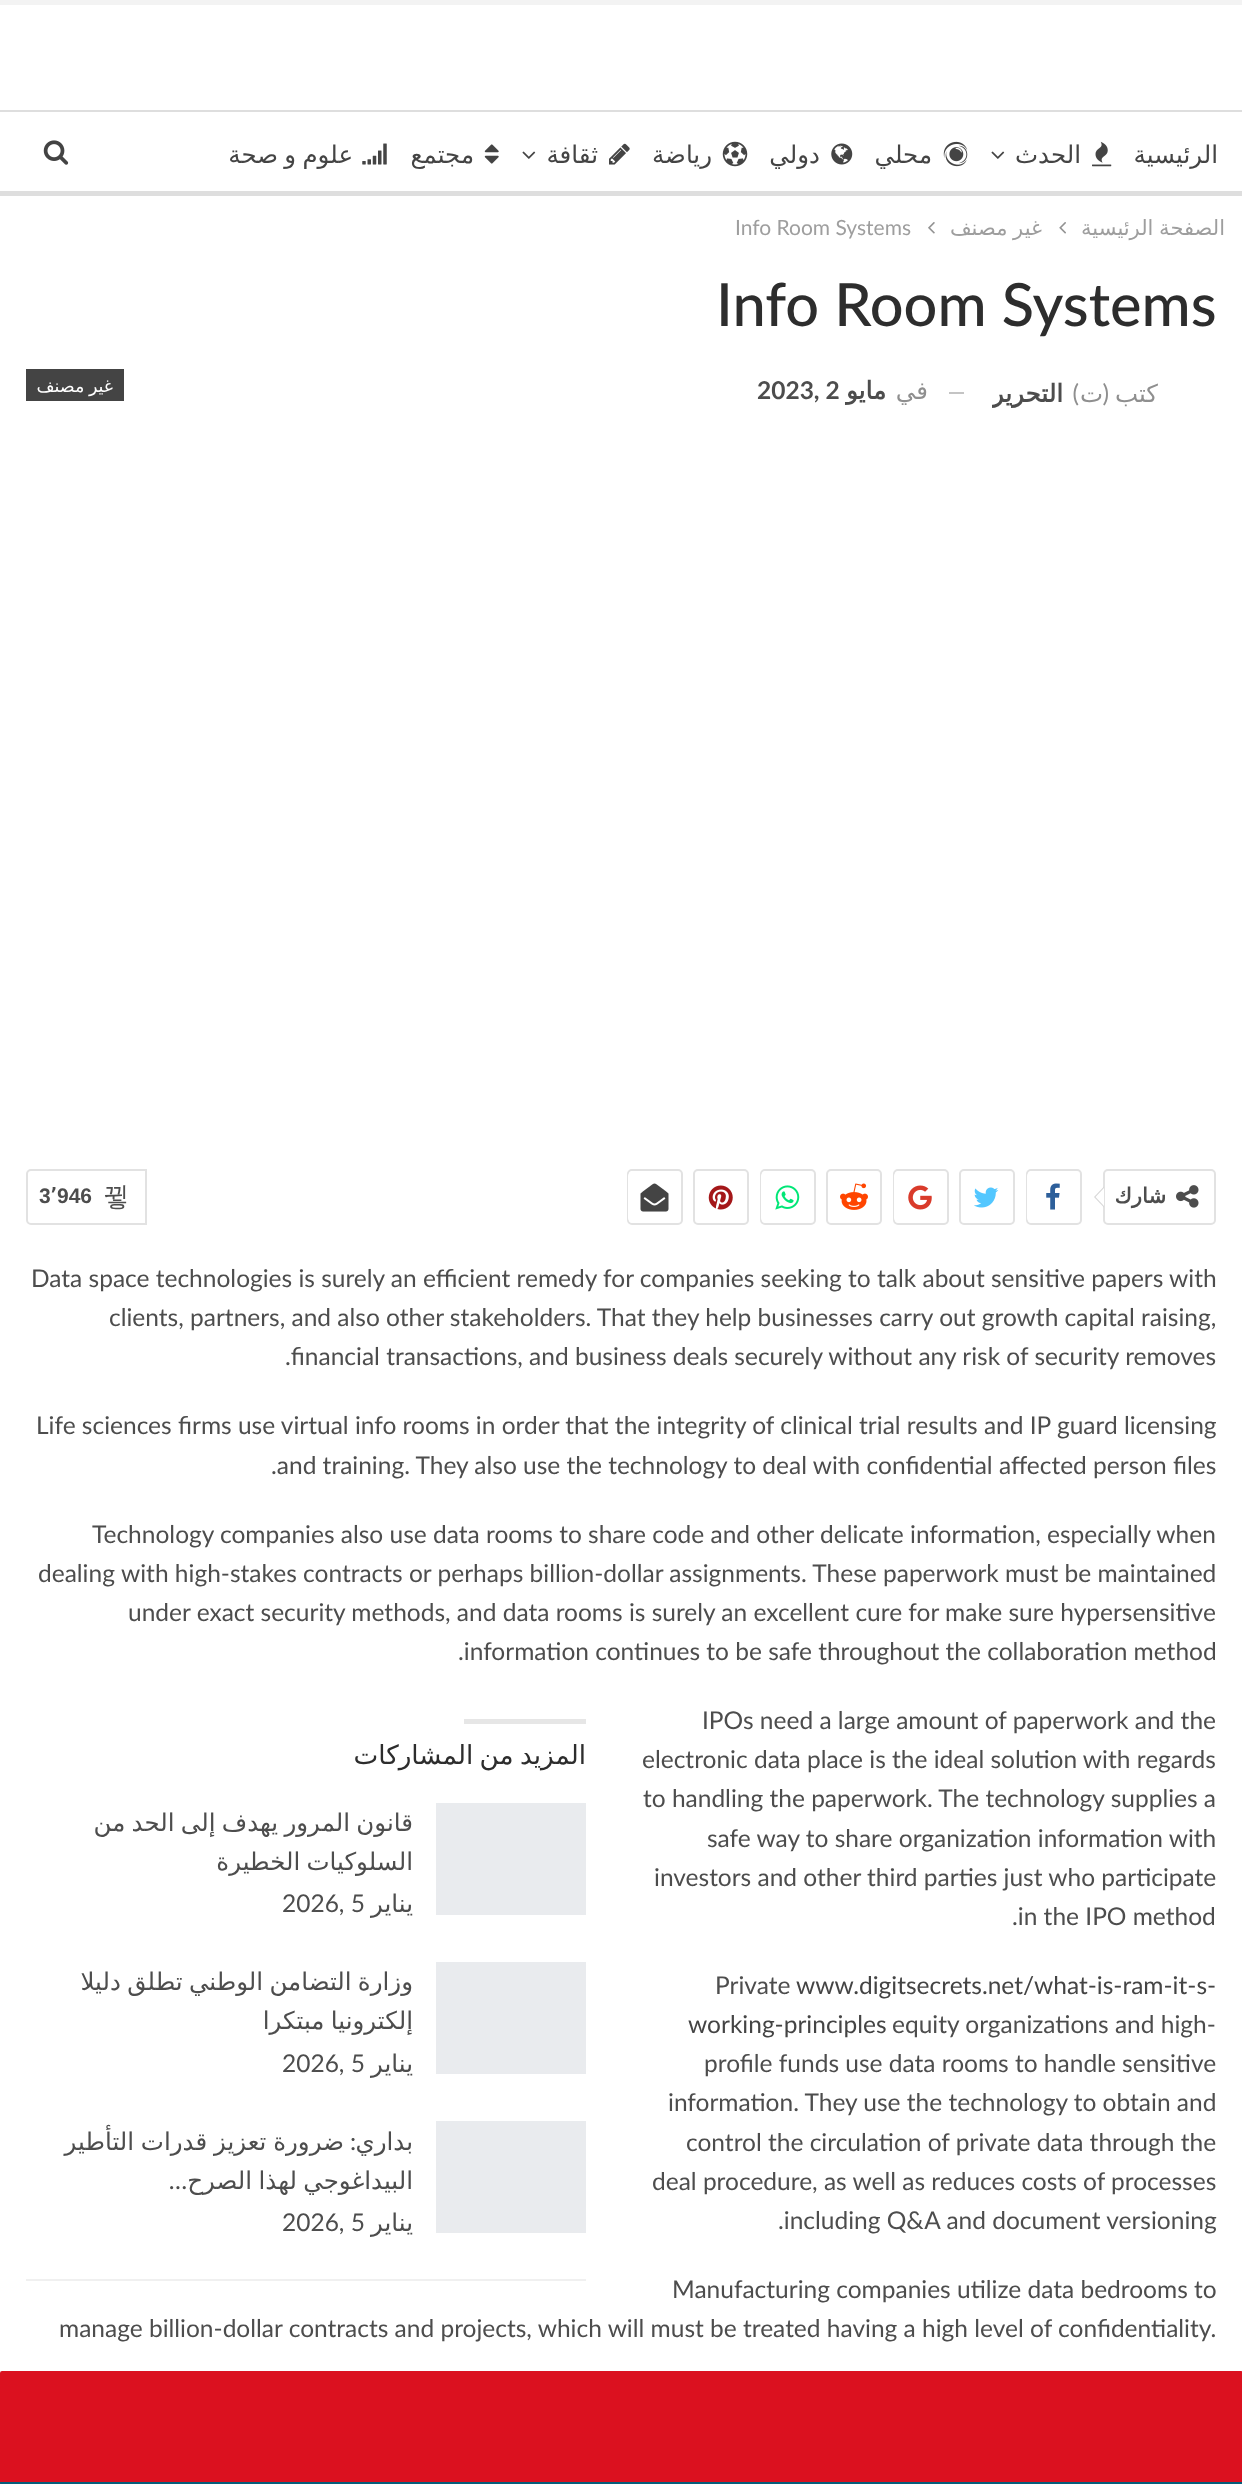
<!DOCTYPE html>
<meta charset="utf-8">
<style>body { margin: 0 } canvas { display: block }</style>
<canvas id="canvas" width="1242" height="2484"></canvas>
<script type="module">
  const canvas = document.getElementById("canvas");
  const ctx = canvas.getContext("2d");
  ctx.miterLimit = 4;
  ctx.fontKerning = "normal";
  async function loadImage(src) {
    const img = new Image();
    img.src = src;
    await img.decode();
    return img;
  }

  ctx.fillStyle = "#f3f3f3";
  ctx.fillRect(0, 0, 1242, 2484);
  ctx.fillStyle = "#ffffff";
  ctx.fillRect(0, 5, 1242, 2479);
  ctx.fillStyle = "#dedede";
  ctx.fillRect(0, 110, 1242, 2);
  ctx.fillRect(0, 191, 1242, 5);
  ctx.drawImage(await loadImage("img1.png"), 43, 140, 26, 25);
  ctx.wordSpacing = "-1.5px";
  ctx.direction = "rtl";
  ctx.font = "24.5px DejaVu Sans";
  ctx.fillStyle = "#444444";
  ctx.fillText("علوم و صحة", 353, 163);
  ctx.drawImage(await loadImage("img2.png"), 362, 143, 25, 22);
  ctx.wordSpacing = "0px";
  ctx.fillText("مجتمع", 474, 163);
  ctx.drawImage(await loadImage("img3.png"), 484, 144, 15, 20);
  ctx.drawImage(await loadImage("img4.png"), 522, 151, 14, 8);
  ctx.fillText("ثقافة", 598, 163);
  ctx.drawImage(await loadImage("img5.png"), 609, 143, 21, 22);
  ctx.fillText("رياضة", 712, 163);
  ctx.drawImage(await loadImage("img6.png"), 722, 141, 26, 26);
  ctx.fillText("دولي", 820, 163);
  ctx.drawImage(await loadImage("img7.png"), 831, 143, 22, 22);
  ctx.fillText("محلي", 932, 163);
  ctx.drawImage(await loadImage("img8.png"), 943, 141, 25, 26);
  ctx.drawImage(await loadImage("img4.png"), 991, 151, 14, 8);
  ctx.fillText("الحدث", 1081, 163);
  ctx.drawImage(await loadImage("img9.png"), 1092, 141, 20, 26);
  ctx.fillText("الرئيسية", 1218, 163);
  ctx.direction = "ltr";
  ctx.font = "21px Lato";
  ctx.fillStyle = "#9e9e9e";
  ctx.fillText("Info Room Systems", 735, 235);
  ctx.drawImage(await loadImage("img10.png"), 928, 222, 7, 12);
  ctx.wordSpacing = "-1px";
  ctx.direction = "rtl";
  ctx.font = "21px DejaVu Sans";
  ctx.fillText("غير مصنف", 1042, 235);
  ctx.drawImage(await loadImage("img11.png"), 1059, 222, 7, 12);
  ctx.fillText("الصفحة الرئيسية", 1225, 235);
  ctx.wordSpacing = "0px";
  ctx.direction = "ltr";
  ctx.font = "500 59.5px Lato";
  ctx.fillStyle = "#2d2d2d";
  ctx.fillText("Info Room Systems", 716, 326);
  ctx.fillStyle = "#444444";
  ctx.fillRect(26, 369, 98, 32);
  ctx.wordSpacing = "-1px";
  ctx.direction = "rtl";
  ctx.font = "17.5px DejaVu Sans";
  ctx.fillStyle = "#ffffff";
  ctx.fillText("غير مصنف", 113, 392);
  ctx.wordSpacing = "0px";
  ctx.direction = "ltr";
  ctx.font = "bold 24.5px Lato";
  ctx.fillStyle = "#4d4d4d";
  ctx.fillText("2023, 2", 757, 399);
  ctx.direction = "rtl";
  ctx.font = "bold 24.5px DejaVu Sans";
  ctx.fillText("مايو", 886, 399);
  ctx.font = "24.5px DejaVu Sans";
  ctx.fillStyle = "#8f8f8f";
  ctx.fillText("في", 928, 399);
  ctx.fillStyle = "#c4c4c4";
  ctx.fillRect(949, 392, 15, 2);
  ctx.save();
  ctx.beginPath();
  ctx.rect(992, 371, 167, 46);
  ctx.clip();
  ctx.font = "bold 24.5px DejaVu Sans";
  ctx.fillStyle = "#4d4d4d";
  ctx.fillText("التحرير", 1063, 402);
  ctx.restore();
  ctx.font = "24.5px Lato";
  ctx.fillStyle = "#8f8f8f";
  ctx.fillText(")", 1079, 402);
  ctx.font = "24.5px DejaVu Sans";
  ctx.fillText("ت", 1103, 402);
  ctx.font = "24.5px Lato";
  ctx.fillText("(", 1109, 402);
  ctx.font = "24.5px DejaVu Sans";
  ctx.fillText("كتب", 1158, 402);
  ctx.beginPath();
  ctx.roundRect(27, 1170, 119, 54, [4, 0, 0, 4]);
  ctx.strokeStyle = "#e2e2e2";
  ctx.lineWidth = 2;
  ctx.stroke();
  ctx.direction = "ltr";
  ctx.font = "bold 21px Liberation Sans";
  ctx.fillStyle = "#4d4d4d";
  ctx.fillText("3", 39, 1203);
  ctx.font = "bold 21px DejaVu Sans";
  ctx.fillText("٬", 50, 1203);
  ctx.font = "bold 21px Liberation Sans";
  ctx.fillText("946", 57, 1203);
  ctx.font = "500 26.25px WenQuanYi Zen Hei";
  ctx.fillText("뀧", 103, 1205);
  ctx.beginPath();
  ctx.roundRect(628, 1170, 54, 54, 4);
  ctx.stroke();
  ctx.fillStyle = "#ffffff";
  ctx.beginPath();
  ctx.roundRect(628, 1171, 53, 52, 5);
  ctx.fill();
  ctx.drawImage(await loadImage("img12.png"), 640, 1183, 29, 29);
  ctx.beginPath();
  ctx.roundRect(694, 1170, 54, 54, 4);
  ctx.stroke();
  ctx.drawImage(await loadImage("img13.png"), 708, 1185, 25, 25);
  ctx.beginPath();
  ctx.roundRect(761, 1170, 54, 54, 4);
  ctx.stroke();
  ctx.beginPath();
  ctx.roundRect(761, 1171, 53, 52, 5);
  ctx.fill();
  ctx.drawImage(await loadImage("img14.png"), 775, 1185, 25, 25);
  ctx.beginPath();
  ctx.roundRect(827, 1170, 54, 54, 4);
  ctx.stroke();
  ctx.drawImage(await loadImage("img15.png"), 840, 1183, 28, 27);
  ctx.beginPath();
  ctx.roundRect(894, 1170, 54, 54, 4);
  ctx.stroke();
  ctx.beginPath();
  ctx.roundRect(894, 1171, 53, 52, 5);
  ctx.fill();
  ctx.drawImage(await loadImage("img16.png"), 908, 1185, 24, 25);
  ctx.beginPath();
  ctx.roundRect(960, 1170, 54, 54, 4);
  ctx.stroke();
  ctx.drawImage(await loadImage("img17.png"), 974, 1187, 25, 21);
  ctx.beginPath();
  ctx.roundRect(1027, 1170, 54, 54, 4);
  ctx.stroke();
  ctx.beginPath();
  ctx.roundRect(1027, 1171, 53, 52, 5);
  ctx.fill();
  ctx.drawImage(await loadImage("img18.png"), 1046, 1183, 14, 27);
  ctx.beginPath();
  ctx.roundRect(1104, 1170, 111, 54, 4);
  ctx.stroke();
  ctx.fillStyle = "#d7d7d7";
  ctx.beginPath();
  ctx.moveTo(1104, 1186.5);
  ctx.lineTo(1104, 1207.5);
  ctx.lineTo(1094, 1197);
  ctx.closePath();
  ctx.fill();
  ctx.direction = "rtl";
  ctx.font = "bold 21px DejaVu Sans";
  ctx.fillStyle = "#4d4d4d";
  ctx.fillText("شارك", 1166, 1203);
  ctx.drawImage(await loadImage("img19.png"), 1176, 1185, 23, 23);
  ctx.fillStyle = "#ffffff";
  ctx.beginPath();
  ctx.moveTo(1104, 1188);
  ctx.lineTo(1104, 1206);
  ctx.lineTo(1095.5, 1197);
  ctx.closePath();
  ctx.fill();
  ctx.direction = "ltr";
  ctx.font = "24.5px Lato";
  ctx.fillStyle = "#4d4d4d";
  ctx.fillText("Data space technologies is surely an efficient remedy for companies seeking to talk about sensitive papers with", 31, 1287);
  ctx.fillText("clients, partners, and also other stakeholders. That they help businesses carry out growth capital raising,", 109, 1326);
  ctx.fillText(".financial transactions, and business deals securely without any risk of security removes", 285, 1365);
  ctx.fillText("Life sciences firms use virtual info rooms in order that the integrity of clinical trial results and IP guard licensing", 36, 1434);
  ctx.fillText(".and training. They also use the technology to deal with confidential affected person files", 271, 1474);
  ctx.fillText("Technology companies also use data rooms to share code and other delicate information, especially when", 92, 1543);
  ctx.fillText("dealing", 38, 1582);
  ctx.fillText("with high-stakes contracts or perhaps billion-dollar assignments. These paperwork must be maintained", 121, 1582);
  ctx.fillText("under exact security methods, and data rooms is surely an excellent cure for make sure hypersensitive", 128, 1621);
  ctx.fillText(".information continues to be safe throughout the collaboration method", 458, 1660);
  ctx.fillStyle = "#f0f0f0";
  ctx.fillRect(26, 2279, 560, 2);
  ctx.fillStyle = "#e6e6e6";
  ctx.fillRect(464, 1719, 122, 5);
  ctx.wordSpacing = "-2px";
  ctx.direction = "rtl";
  ctx.font = "26.25px DejaVu Sans";
  ctx.fillStyle = "#2d2d2d";
  ctx.fillText("المزيد من المشاركات", 586, 1764);
  ctx.wordSpacing = "-1.5px";
  ctx.font = "24.5px DejaVu Sans";
  ctx.fillStyle = "#4d4d4d";
  ctx.fillText("قانون المرور يهدف إلى الحد من", 413, 1831);
  ctx.fillText("السلوكيات الخطيرة", 413, 1870);
  ctx.fillStyle = "#e9ebee";
  ctx.fillRect(436, 1803, 150, 112);
  ctx.wordSpacing = "0px";
  ctx.direction = "ltr";
  ctx.font = "24.5px Lato";
  ctx.fillStyle = "#4d4d4d";
  ctx.fillText("2026, 5", 282, 1912);
  ctx.direction = "rtl";
  ctx.font = "24.5px DejaVu Sans";
  ctx.fillText("يناير", 413, 1912);
  ctx.wordSpacing = "-1.5px";
  ctx.fillText("وزارة التضامن الوطني تطلق دليلا", 413, 1990);
  ctx.fillText("إلكترونيا مبتكرا", 413, 2029);
  ctx.fillStyle = "#e9ebee";
  ctx.fillRect(436, 1962, 150, 112);
  ctx.wordSpacing = "0px";
  ctx.direction = "ltr";
  ctx.font = "24.5px Lato";
  ctx.fillStyle = "#4d4d4d";
  ctx.fillText("2026, 5", 282, 2072);
  ctx.direction = "rtl";
  ctx.font = "24.5px DejaVu Sans";
  ctx.fillText("يناير", 413, 2072);
  ctx.wordSpacing = "-1px";
  ctx.fillText("ضرورة تعزيز قدرات التأطير", 344, 2150);
  ctx.wordSpacing = "0px";
  ctx.font = "24.5px Lato";
  ctx.fillText(":", 356, 2150);
  ctx.font = "24.5px DejaVu Sans";
  ctx.fillText("بداري", 413, 2150);
  ctx.font = "24.5px Lato";
  ctx.fillText("…", 187, 2189);
  ctx.font = "24.5px DejaVu Sans";
  ctx.fillText("الصرح", 252, 2189);
  ctx.wordSpacing = "-1.5px";
  ctx.fillText("البيداغوجي لهذا", 413, 2189);
  ctx.fillStyle = "#e9ebee";
  ctx.fillRect(436, 2121, 150, 112);
  ctx.wordSpacing = "0px";
  ctx.direction = "ltr";
  ctx.font = "24.5px Lato";
  ctx.fillStyle = "#4d4d4d";
  ctx.fillText("2026, 5", 282, 2231);
  ctx.direction = "rtl";
  ctx.font = "24.5px DejaVu Sans";
  ctx.fillText("يناير", 413, 2231);
  ctx.direction = "ltr";
  ctx.font = "24.5px Lato";
  ctx.fillText("IPOs need a large amount of paperwork and the", 702, 1729);
  ctx.fillText("electronic data place is the ideal solution with regards", 642, 1768);
  ctx.fillText("to handling the paperwork. The technology supplies a", 643, 1807);
  ctx.fillText("safe way to share organization information with", 707, 1847);
  ctx.fillText("investors and other third parties just who participate", 654, 1886);
  ctx.fillText(".in the IPO method", 1012, 1925);
  ctx.fillText("Private", 715, 1994);
  ctx.fillStyle = "#444444";
  ctx.fillText("www.digitsecrets.net/what-is-ram-it-s-", 796, 1994);
  ctx.fillText("working-principles", 688, 2033);
  ctx.fillStyle = "#4d4d4d";
  ctx.fillText("equity organizations and high-", 892, 2033);
  ctx.fillText("profile funds use data rooms to handle sensitive", 704, 2072);
  ctx.fillText("information. They use the technology to obtain and", 668, 2111);
  ctx.fillText("control the circulation of private data through the", 686, 2151);
  ctx.fillText("deal procedure, as well as reduces costs of processes", 652, 2190);
  ctx.fillText(".including Q&A and document versioning", 778, 2229);
  ctx.fillText("Manufacturing companies utilize data bedrooms to", 672, 2298);
  ctx.fillText("manage billion-dollar contracts and projects, which will must be treated having a high level of confidentiality.", 59, 2337);
  ctx.fillStyle = "#db111f";
  ctx.beginPath();
  ctx.roundRect(0, 2371, 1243, 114, 2);
  ctx.fill();
  ctx.fillStyle = "#075d7a";
  ctx.beginPath();
  ctx.moveTo(0, 2482);
  ctx.lineTo(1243, 2482);
  ctx.lineTo(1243, 2483);
  ctx.bezierCurveTo(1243, 2484, 1242, 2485, 1241, 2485);
  ctx.lineTo(2, 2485);
  ctx.bezierCurveTo(1, 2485, 0, 2484, 0, 2483);
  ctx.closePath();
  ctx.fill();
</script>
